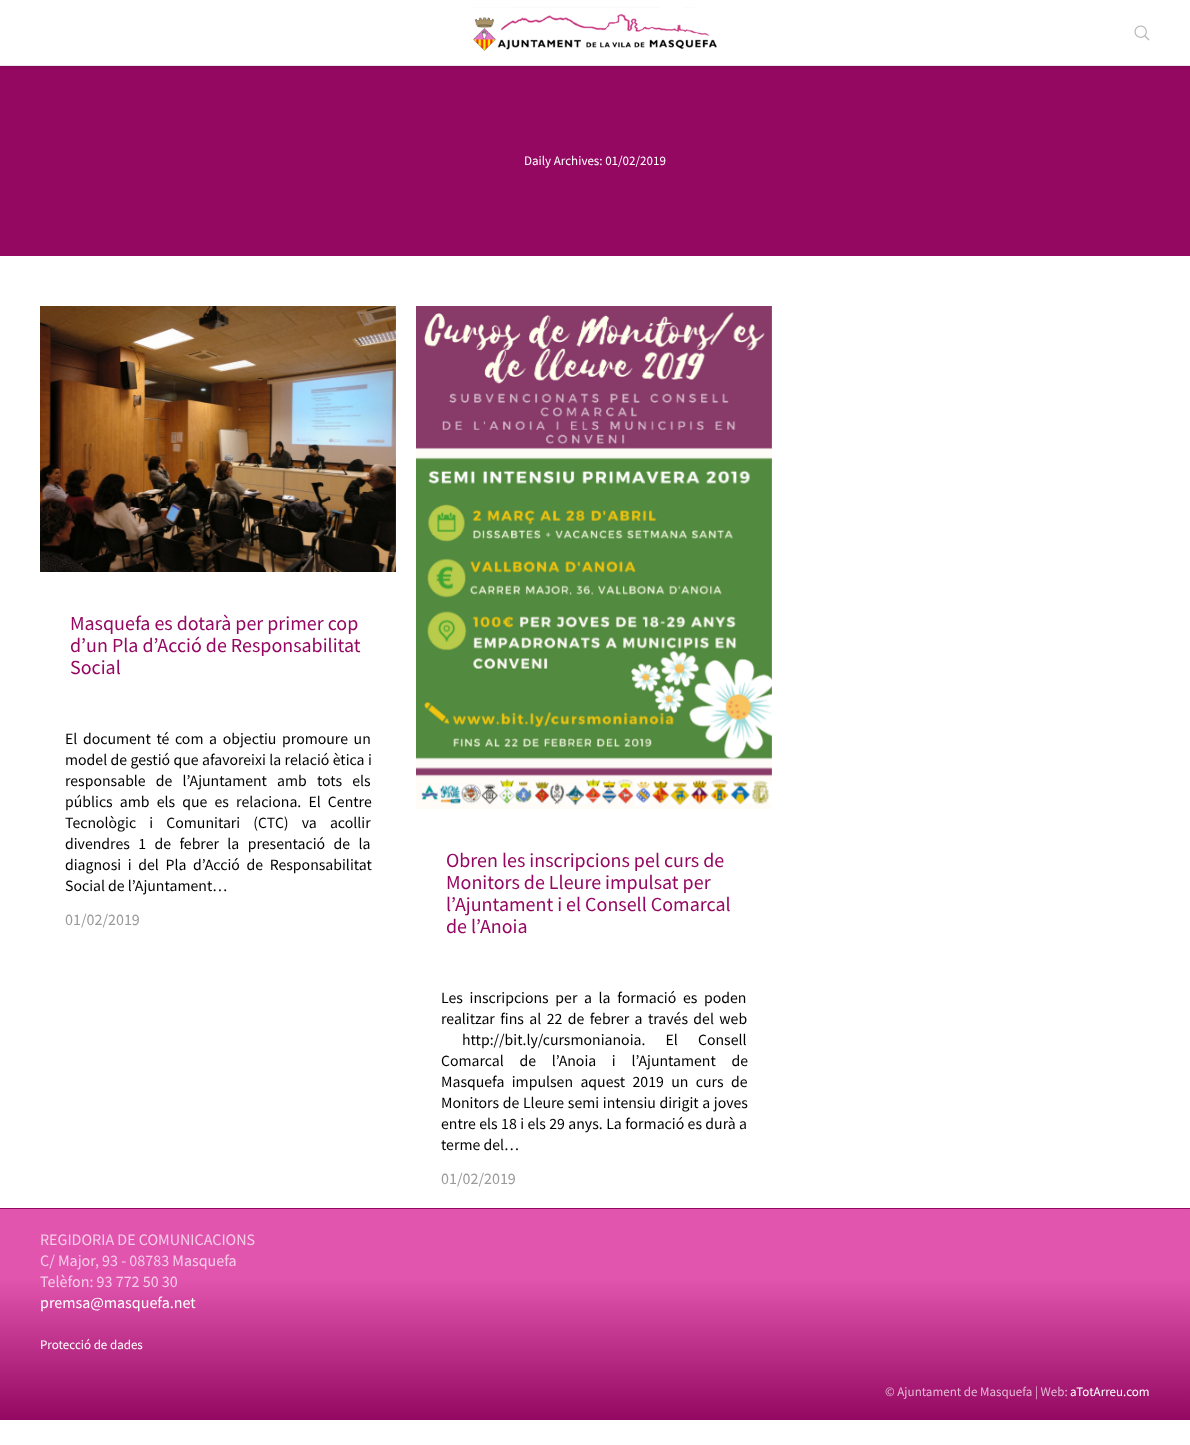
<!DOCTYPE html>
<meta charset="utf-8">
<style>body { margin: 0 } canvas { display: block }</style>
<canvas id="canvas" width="1190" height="1445"></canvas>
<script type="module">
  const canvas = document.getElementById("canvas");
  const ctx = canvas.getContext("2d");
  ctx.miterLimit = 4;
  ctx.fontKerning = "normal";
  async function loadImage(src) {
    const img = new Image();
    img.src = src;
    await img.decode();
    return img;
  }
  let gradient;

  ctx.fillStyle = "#ffffff";
  ctx.fillRect(0, 0, 1190, 1445);
  ctx.fillStyle = "#950862";
  ctx.fillRect(0, 66, 1190, 190);
  ctx.save();
  ctx.beginPath();
  ctx.rect(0, 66, 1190, 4);
  ctx.clip();
  ctx.fillStyle = "rgba(0, 0, 0, 0.1)";
  ctx.filter = "blur(2px)";
  ctx.beginPath();
  ctx.rect(0, 0, 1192, 68);
  ctx.fill();
  ctx.filter = "none";
  ctx.restore();
  ctx.drawImage(await loadImage("img1.png"), 473, 7, 244, 44);
  ctx.drawImage(await loadImage("img2.png"), 1134, 25, 16, 16);
  ctx.fillStyle = "#e7e7e8";
  ctx.fillRect(0, 65, 1190, 1);
  ctx.font = "13px Source Sans Pro";
  ctx.fillStyle = "#ffffff";
  ctx.fillText("Daily Archives: 01/02/2019", 524, 165);
  ctx.drawImage(await loadImage("img3.png"), 40, 306, 356, 266);
  ctx.font = "20px Source Sans Pro";
  ctx.fillStyle = "#950862";
  ctx.fillText("Masquefa es dotarà per primer cop", 70, 630);
  ctx.fillText("d’un Pla d’Acció de Responsabilitat", 70, 652);
  ctx.fillText("Social", 70, 674);
  ctx.wordSpacing = "2.5px";
  ctx.font = "15.75px Source Sans Pro";
  ctx.fillStyle = "#000000";
  ctx.fillText("El document té com a objectiu promoure un", 65, 744);
  ctx.wordSpacing = "0.25px";
  ctx.fillText("model de gestió que afavoreixi la relació ètica i", 65, 765);
  ctx.wordSpacing = "7px";
  ctx.fillText("responsable de l’Ajuntament amb tots els", 65, 786);
  ctx.wordSpacing = "4px";
  ctx.fillText("públics amb els que es relaciona. El Centre", 65, 807);
  ctx.wordSpacing = "10px";
  ctx.fillText("Tecnològic i Comunitari (CTC) va acollir", 65, 828);
  ctx.wordSpacing = "5.25px";
  ctx.fillText("divendres 1 de febrer la presentació de la", 65, 849);
  ctx.wordSpacing = "3.5px";
  ctx.fillText("diagnosi i del Pla d’Acció de Responsabilitat", 65, 870);
  ctx.wordSpacing = "0px";
  ctx.fillText("Social de l’Ajuntament…", 65, 891);
  ctx.font = "16px Source Sans Pro";
  ctx.fillStyle = "#999999";
  ctx.fillText("01/02/2019", 65, 925);
  ctx.drawImage(await loadImage("img4.png"), 416, 306, 356, 503);
  ctx.font = "20px Source Sans Pro";
  ctx.fillStyle = "#950862";
  ctx.fillText("Obren les inscripcions pel curs de", 446, 867);
  ctx.fillText("Monitors de Lleure impulsat per", 446, 889);
  ctx.fillText("l’Ajuntament i el Consell Comarcal", 446, 911);
  ctx.fillText("de l’Anoia", 446, 933);
  ctx.wordSpacing = "3.5px";
  ctx.font = "15.75px Source Sans Pro";
  ctx.fillStyle = "#000000";
  ctx.fillText("Les inscripcions per a la formació es poden", 441, 1003);
  ctx.wordSpacing = "2.25px";
  ctx.fillText("realitzar fins al 22 de febrer a través del web", 441, 1024);
  ctx.wordSpacing = "17px";
  ctx.fillText("http://bit.ly/cursmonianoia. El Consell", 462, 1045);
  ctx.wordSpacing = "12.5px";
  ctx.fillText("Comarcal de l’Anoia i l’Ajuntament de", 441, 1066);
  ctx.wordSpacing = "4.25px";
  ctx.fillText("Masquefa impulsen aquest 2019 un curs de", 441, 1087);
  ctx.wordSpacing = "0.5px";
  ctx.fillText("Monitors de Lleure semi intensiu dirigit a joves", 441, 1108);
  ctx.wordSpacing = "0.25px";
  ctx.fillText("entre els 18 i els 29 anys. La formació es durà a", 441, 1129);
  ctx.wordSpacing = "0px";
  ctx.fillText("terme del…", 441, 1150);
  ctx.font = "16px Source Sans Pro";
  ctx.fillStyle = "#999999";
  ctx.fillText("01/02/2019", 441, 1184);
  gradient = ctx.createLinearGradient(595, 998, 595, 1209);
  gradient.addColorStop(0.33, "#e255af");
  gradient.addColorStop(1, "#950862");
  ctx.fillStyle = gradient;
  ctx.fillRect(0, 1208, 1190, 1);
  gradient = ctx.createLinearGradient(595, 1209, 595, 1420);
  gradient.addColorStop(0.33, "#e255af");
  gradient.addColorStop(1, "#950862");
  ctx.fillStyle = gradient;
  ctx.fillRect(0, 1209, 1190, 211);
  ctx.fillStyle = "#f6cce7";
  ctx.fillText("REGIDORIA DE COMUNICACIONS", 40, 1245);
  ctx.fillText("C/ Major, 93 - 08783 Masquefa", 40, 1266);
  ctx.fillText("Telèfon: 93 772 50 30", 40, 1287);
  ctx.fillStyle = "#ffffff";
  ctx.fillText("premsa@masquefa.net", 40, 1308);
  ctx.font = "13px Source Sans Pro";
  ctx.fillText("Protecció de dades", 40, 1349);
  ctx.fillStyle = "#e4b9d4";
  ctx.fillText("© Ajuntament de Masquefa | Web:", 885, 1396);
  ctx.fillStyle = "#ffffff";
  ctx.fillText("aTotArreu.com", 1070, 1396);
</script>
